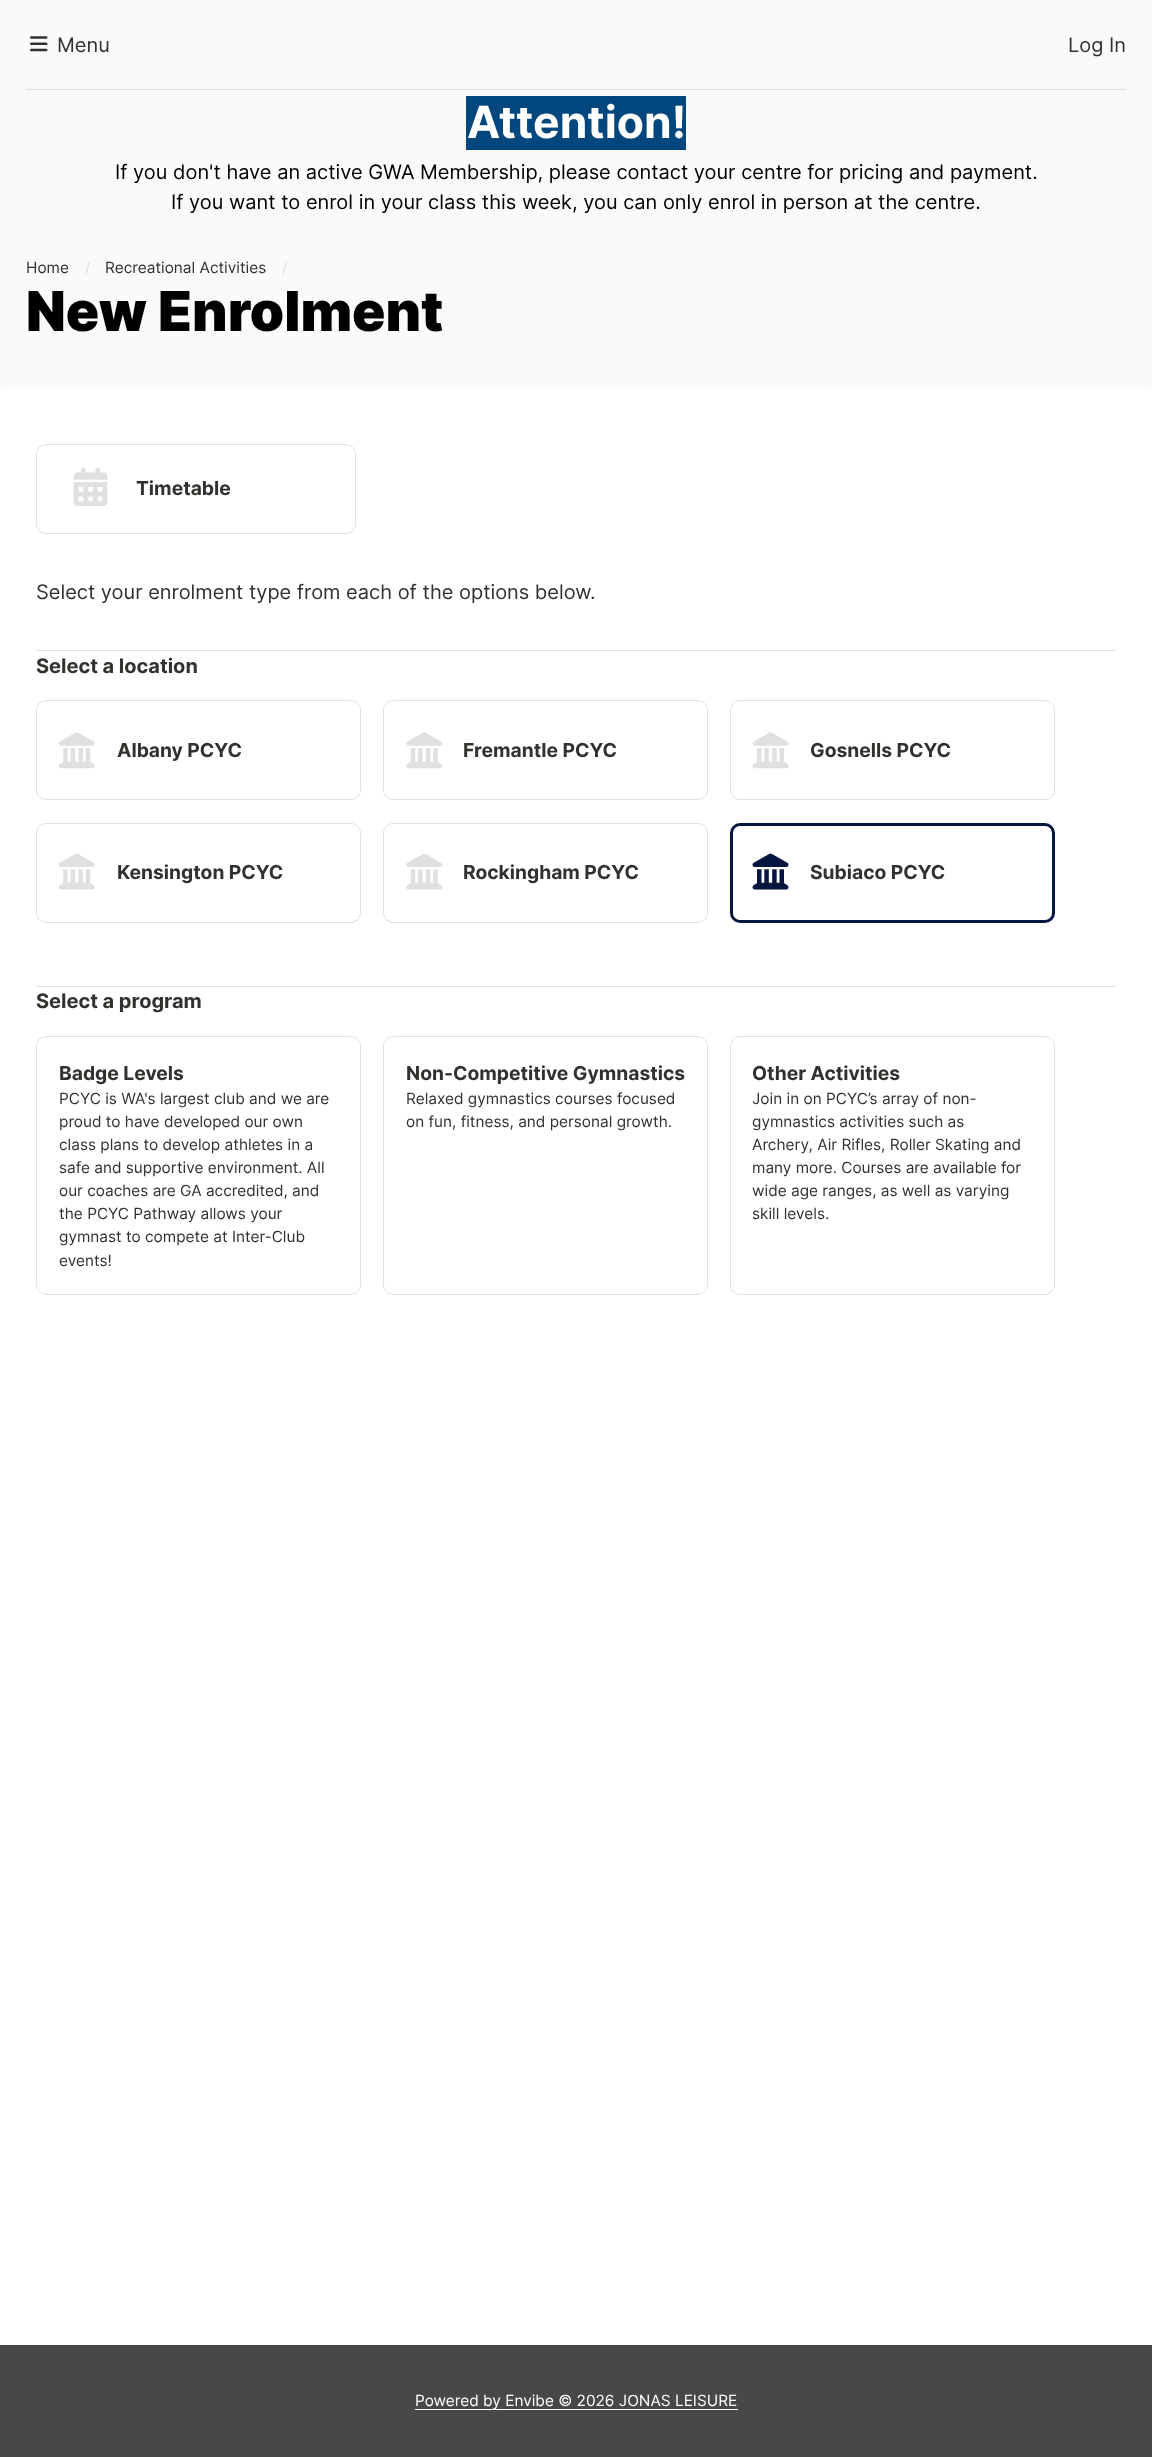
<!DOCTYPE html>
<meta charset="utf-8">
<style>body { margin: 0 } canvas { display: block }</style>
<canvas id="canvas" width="1152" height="2457"></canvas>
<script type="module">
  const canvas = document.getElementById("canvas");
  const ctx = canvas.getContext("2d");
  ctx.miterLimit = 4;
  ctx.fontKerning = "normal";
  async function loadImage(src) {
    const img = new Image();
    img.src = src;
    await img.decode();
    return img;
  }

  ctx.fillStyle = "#fafafa";
  ctx.fillRect(0, 0, 1152, 2457);
  ctx.fillStyle = "#e0e0e0";
  ctx.fillRect(26, 89, 1100, 1);
  ctx.drawImage(await loadImage("img1.png"), 30, 36, 18, 16);
  ctx.font = "20px Inter";
  ctx.fillStyle = "#33312e";
  ctx.fillText("Menu", 57, 52);
  ctx.fillText("Log In", 1068, 52);
  ctx.fillStyle = "#01467d";
  ctx.fillRect(466, 96, 220, 54);
  ctx.font = "bold 44.5px Inter";
  ctx.fillStyle = "#ffffff";
  ctx.fillText("Attention!", 467, 138);
  ctx.font = "20px Inter";
  ctx.fillStyle = "#000000";
  ctx.fillText("If you don't have an active GWA Membership, please contact your centre for pricing and payment.", 115, 179);
  ctx.fillText("If you want to enrol in your class this week, you can only enrol in person at the centre.", 171, 209);
  ctx.font = "15.4px Inter";
  ctx.fillStyle = "#33312e";
  ctx.fillText("Home", 26, 273);
  ctx.fillStyle = "#e0e0e0";
  ctx.fillText("/", 85, 273);
  ctx.fillStyle = "#33312e";
  ctx.fillText("Recreational Activities", 105, 273);
  ctx.fillStyle = "#e0e0e0";
  ctx.fillText("/", 282, 273);
  ctx.font = "900 55px Inter";
  ctx.fillStyle = "#000000";
  ctx.fillText("New Enrolment", 26, 331);
  ctx.fillStyle = "#ffffff";
  ctx.beginPath();
  ctx.moveTo(5, 388);
  ctx.lineTo(1148, 388);
  ctx.bezierCurveTo(1151, 388, 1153, 390, 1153, 393);
  ctx.lineTo(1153, 2345);
  ctx.lineTo(0, 2345);
  ctx.lineTo(0, 393);
  ctx.bezierCurveTo(0, 390, 2, 388, 5, 388);
  ctx.closePath();
  ctx.fill();
  ctx.beginPath();
  ctx.roundRect(36.5, 444.5, 319, 89, 9.5);
  ctx.strokeStyle = "#e0e0e0";
  ctx.stroke();
  ctx.drawImage(await loadImage("img2.png"), 73, 467, 35, 39);
  ctx.font = "bold 19.25px Inter";
  ctx.fillStyle = "#33312e";
  ctx.fillText("Timetable", 136, 495);
  ctx.font = "20px Inter";
  ctx.fillText("Select your enrolment type from each of the options below.", 36, 599);
  ctx.fillStyle = "#e0e0e0";
  ctx.fillRect(36, 650, 1080, 1);
  ctx.font = "bold 20px Inter";
  ctx.fillStyle = "#33312e";
  ctx.fillText("Select a location", 36, 673);
  ctx.beginPath();
  ctx.roundRect(36.5, 700.5, 324, 99, 9.5);
  ctx.stroke();
  ctx.drawImage(await loadImage("img3.png"), 58, 732, 37, 37);
  ctx.font = "bold 19.25px Inter";
  ctx.fillText("Albany PCYC", 117, 757);
  ctx.beginPath();
  ctx.roundRect(383.5, 700.5, 324, 99, 9.5);
  ctx.stroke();
  ctx.drawImage(await loadImage("img4.png"), 406, 732, 37, 37);
  ctx.fillText("Fremantle PCYC", 463, 757);
  ctx.beginPath();
  ctx.roundRect(730.5, 700.5, 324, 99, 9.5);
  ctx.stroke();
  ctx.drawImage(await loadImage("img5.png"), 752, 732, 37, 37);
  ctx.fillText("Gosnells PCYC", 810, 757);
  ctx.beginPath();
  ctx.roundRect(36.5, 823.5, 324, 99, 9.5);
  ctx.stroke();
  ctx.drawImage(await loadImage("img6.png"), 58, 853, 37, 37);
  ctx.fillText("Kensington PCYC", 117, 879);
  ctx.beginPath();
  ctx.roundRect(383.5, 823.5, 324, 99, 9.5);
  ctx.stroke();
  ctx.drawImage(await loadImage("img7.png"), 406, 853, 37, 37);
  ctx.fillText("Rockingham PCYC", 463, 879);
  ctx.beginPath();
  ctx.roundRect(731.5, 824.5, 322, 97, 8.5);
  ctx.strokeStyle = "#041640";
  ctx.lineWidth = 3;
  ctx.stroke();
  ctx.drawImage(await loadImage("img8.png"), 752, 853, 37, 37);
  ctx.fillText("Subiaco PCYC", 810, 879);
  ctx.fillStyle = "#e0e0e0";
  ctx.fillRect(36, 986, 1080, 1);
  ctx.font = "bold 20px Inter";
  ctx.fillStyle = "#33312e";
  ctx.fillText("Select a program", 36, 1008);
  ctx.beginPath();
  ctx.roundRect(36.5, 1036.5, 324, 258, 9.5);
  ctx.strokeStyle = "#e0e0e0";
  ctx.lineWidth = 1;
  ctx.stroke();
  ctx.font = "bold 19.25px Inter";
  ctx.fillText("Badge Levels", 59, 1080);
  ctx.font = "15.4px Inter";
  ctx.fillText("PCYC is WA's largest club and we are", 59, 1104);
  ctx.fillText("proud to have developed our own", 59, 1127);
  ctx.fillText("class plans to develop athletes in a", 59, 1150);
  ctx.fillText("safe and supportive environment. All", 59, 1173);
  ctx.fillText("our coaches are GA accredited, and", 59, 1196);
  ctx.fillText("the PCYC Pathway allows your", 59, 1219);
  ctx.fillText("gymnast to compete at Inter-Club", 59, 1242);
  ctx.fillText("events!", 59, 1266);
  ctx.beginPath();
  ctx.roundRect(383.5, 1036.5, 324, 258, 9.5);
  ctx.stroke();
  ctx.font = "bold 19.25px Inter";
  ctx.fillText("Non-Competitive Gymnastics", 406, 1080);
  ctx.font = "15.4px Inter";
  ctx.fillText("Relaxed gymnastics courses focused", 406, 1104);
  ctx.fillText("on fun, fitness, and personal growth.", 406, 1127);
  ctx.beginPath();
  ctx.roundRect(730.5, 1036.5, 324, 258, 9.5);
  ctx.stroke();
  ctx.font = "bold 19.25px Inter";
  ctx.fillText("Other Activities", 752, 1080);
  ctx.font = "15.4px Inter";
  ctx.fillText("Join in on PCYC’s array of non-", 752, 1104);
  ctx.fillText("gymnastics activities such as", 752, 1127);
  ctx.fillText("Archery, Air Rifles, Roller Skating and", 752, 1150);
  ctx.fillText("many more. Courses are available for", 752, 1173);
  ctx.fillText("wide age ranges, as well as varying", 752, 1196);
  ctx.fillText("skill levels.", 752, 1219);
  ctx.fillStyle = "#484848";
  ctx.fillRect(0, 2345, 1152, 112);
  ctx.fillStyle = "#ffffff";
  ctx.fillRect(415, 2409, 323, 1);
  ctx.fillText("Powered by Envibe © 2026 JONAS LEISURE", 415, 2406);
</script>
